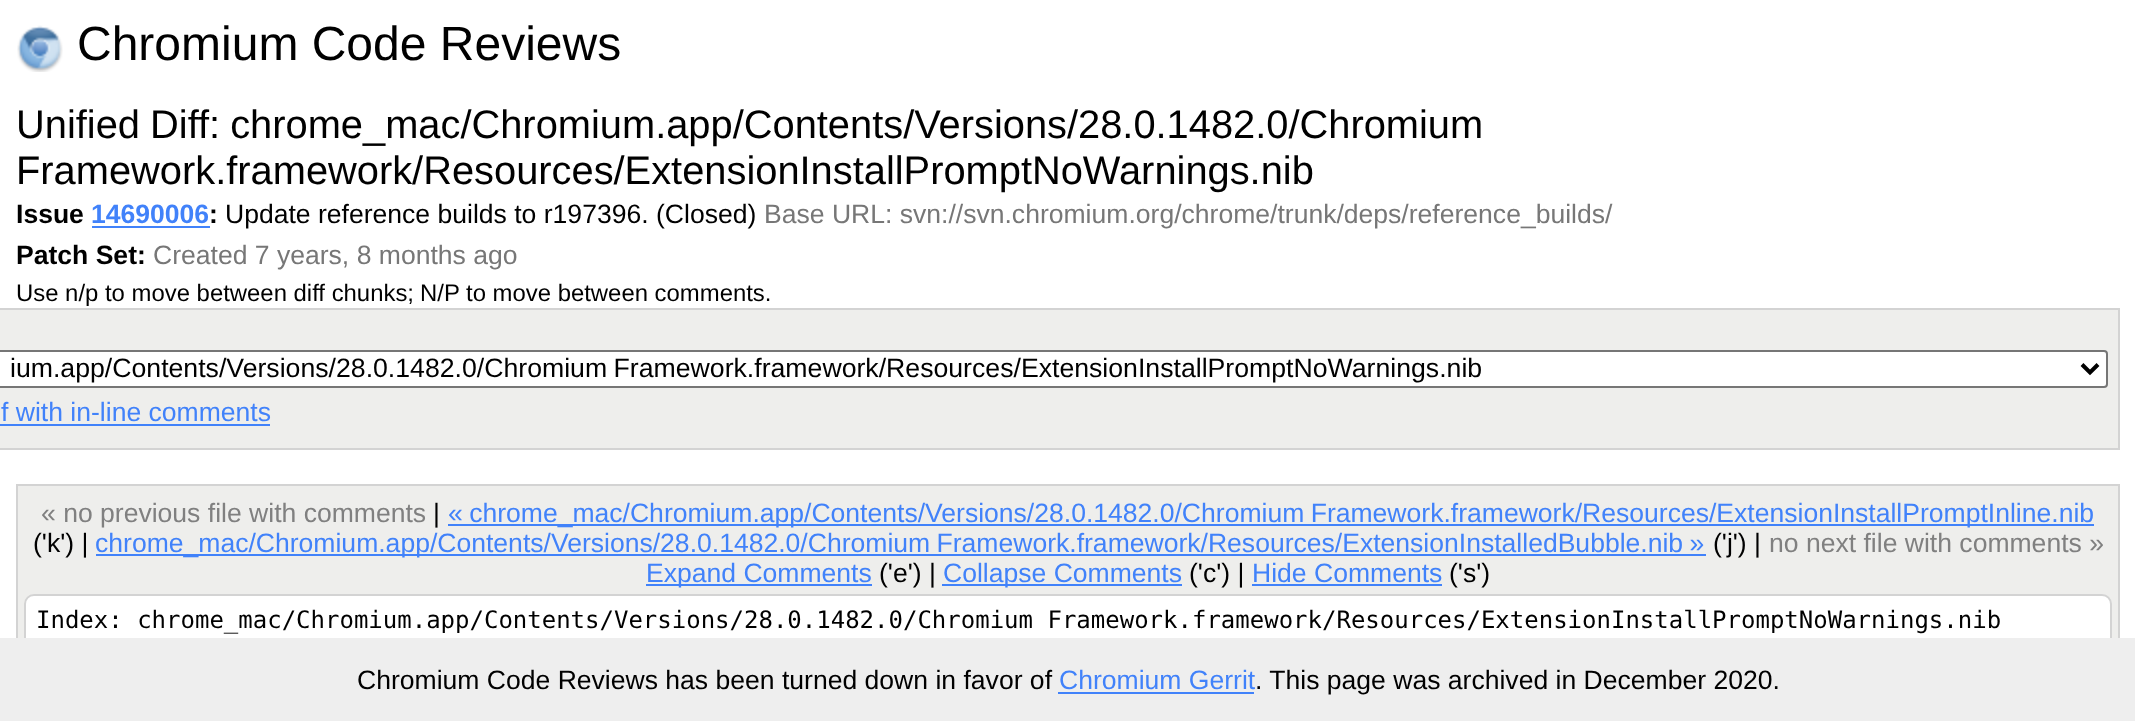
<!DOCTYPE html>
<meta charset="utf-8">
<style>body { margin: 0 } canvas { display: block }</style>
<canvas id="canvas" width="2135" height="721"></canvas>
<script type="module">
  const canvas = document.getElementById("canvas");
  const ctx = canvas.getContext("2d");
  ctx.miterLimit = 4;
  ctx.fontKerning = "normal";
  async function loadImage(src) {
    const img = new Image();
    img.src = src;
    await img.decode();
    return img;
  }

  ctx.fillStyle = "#ffffff";
  ctx.fillRect(0, 0, 2135, 721);
  ctx.drawImage(await loadImage("img1.png"), 17, 25, 46, 47);
  ctx.font = "48px Liberation Sans";
  ctx.fillStyle = "#000000";
  ctx.fillText("Chromium Code Reviews", 77, 60);
  ctx.wordSpacing = "-1px";
  ctx.font = "39.85px Liberation Sans";
  ctx.fillText("Unified Diff: chrome_mac/Chromium.app/Contents/Versions/28.0.1482.0/Chromium", 16, 138);
  ctx.wordSpacing = "0px";
  ctx.fillText("Framework.framework/Resources/ExtensionInstallPromptNoWarnings.nib", 16, 184);
  ctx.font = "bold 26.55px Liberation Sans";
  ctx.fillText("Issue", 16, 223);
  ctx.fillStyle = "#4182fa";
  ctx.fillText("14690006", 91, 223);
  ctx.fillStyle = "#000000";
  ctx.fillText(":", 209, 223);
  ctx.fillStyle = "#4182fa";
  ctx.fillRect(92, 226, 118, 2);
  ctx.font = "26.55px Liberation Sans";
  ctx.fillStyle = "#000000";
  ctx.fillText("Update reference builds to r197396.", 225, 223);
  ctx.fillText("(Closed)", 656, 223);
  ctx.fillStyle = "#777777";
  ctx.fillText("Base URL: svn://svn.chromium.org/chrome/trunk/deps/reference_builds/", 764, 223);
  ctx.font = "bold 26.55px Liberation Sans";
  ctx.fillStyle = "#000000";
  ctx.fillText("Patch Set:", 16, 264);
  ctx.font = "26.55px Liberation Sans";
  ctx.fillStyle = "#777777";
  ctx.fillText("Created 7 years, 8 months ago", 153, 264);
  ctx.font = "23.9px Liberation Sans";
  ctx.fillStyle = "#000000";
  ctx.fillText("Use n/p to move between diff chunks;", 16, 301);
  ctx.fillText("N/P to move between comments.", 420, 301);
  ctx.fillStyle = "#eeeeec";
  ctx.beginPath();
  ctx.rect(-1, 309, 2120, 140);
  ctx.fill();
  ctx.strokeStyle = "#d3d3d3";
  ctx.lineWidth = 2;
  ctx.stroke();
  ctx.fillStyle = "#ffffff";
  ctx.beginPath();
  ctx.roundRect(-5, 351, 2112, 36, 3);
  ctx.fill();
  ctx.strokeStyle = "#767676";
  ctx.stroke();
  ctx.beginPath();
  ctx.moveTo(2082, 364.5);
  ctx.lineTo(2090, 372.5);
  ctx.lineTo(2098, 364.5);
  ctx.strokeStyle = "#000000";
  ctx.lineWidth = 4;
  ctx.stroke();
  ctx.wordSpacing = "-1px";
  ctx.font = "26.67px Liberation Sans";
  ctx.fillStyle = "#000000";
  ctx.fillText("ium.app/Contents/Versions/28.0.1482.0/Chromium Framework.framework/Resources/ExtensionInstallPromptNoWarnings.nib", 10, 377);
  ctx.wordSpacing = "0px";
  ctx.font = "26.55px Liberation Sans";
  ctx.fillStyle = "#4182fa";
  ctx.fillText("f with in-line comments", 1, 421);
  ctx.fillRect(0, 424, 270, 2);
  ctx.fillStyle = "#eeeeec";
  ctx.fillRect(18, 486, 2100, 152);
  ctx.strokeStyle = "#d3d3d3";
  ctx.lineWidth = 2;
  ctx.strokeRect(17, 485, 2102, 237);
  ctx.fillStyle = "#808080";
  ctx.fillText("« no previous file with comments", 41, 522);
  ctx.fillStyle = "#000000";
  ctx.fillText("|", 433, 522);
  ctx.fillStyle = "#4182fa";
  ctx.fillRect(448, 524, 1646, 2);
  ctx.wordSpacing = "-1px";
  ctx.fillText("« chrome_mac/Chromium.app/Contents/Versions/28.0.1482.0/Chromium Framework.framework/Resources/ExtensionInstallPromptInline.nib", 448, 522);
  ctx.wordSpacing = "0px";
  ctx.fillStyle = "#000000";
  ctx.fillText("('k') |", 33, 552);
  ctx.fillStyle = "#4182fa";
  ctx.fillRect(96, 554, 1610, 2);
  ctx.wordSpacing = "-1px";
  ctx.fillText("chrome_mac/Chromium.app/Contents/Versions/28.0.1482.0/Chromium Framework.framework/Resources/ExtensionInstalledBubble.nib »", 95, 552);
  ctx.wordSpacing = "0px";
  ctx.fillStyle = "#000000";
  ctx.fillText("('j') |", 1713, 552);
  ctx.fillStyle = "#808080";
  ctx.fillText("no next file with comments »", 1769, 552);
  ctx.fillStyle = "#4182fa";
  ctx.fillRect(646, 584, 226, 2);
  ctx.fillText("Expand Comments", 646, 582);
  ctx.fillStyle = "#000000";
  ctx.fillText("('e') |", 879, 582);
  ctx.fillStyle = "#4182fa";
  ctx.fillRect(942, 584, 240, 2);
  ctx.fillText("Collapse Comments", 943, 582);
  ctx.fillStyle = "#000000";
  ctx.fillText("('c') |", 1189, 582);
  ctx.fillStyle = "#4182fa";
  ctx.fillText("Hide Comments", 1252, 582);
  ctx.fillRect(1252, 584, 190, 2);
  ctx.fillStyle = "#000000";
  ctx.fillText("('s')", 1449, 582);
  ctx.fillStyle = "#ffffff";
  ctx.beginPath();
  ctx.roundRect(25, 595, 2086, 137, 9);
  ctx.fill();
  ctx.stroke();
  ctx.font = "24px DejaVu Sans Mono";
  ctx.fillStyle = "#000000";
  ctx.fillText("Index: chrome_mac/Chromium.app/Contents/Versions/28.0.1482.0/Chromium Framework.framework/Resources/ExtensionInstallPromptNoWarnings.nib", 36, 628);
  ctx.fillStyle = "#eeeeee";
  ctx.fillRect(0, 638, 2135, 83);
  ctx.font = "26.55px Liberation Sans";
  ctx.fillStyle = "#000000";
  ctx.fillText("Chromium Code Reviews has been turned down in favor of", 357, 689);
  ctx.fillStyle = "#4182fa";
  ctx.fillText("Chromium Gerrit", 1059, 689);
  ctx.fillRect(1058, 692, 196, 2);
  ctx.fillStyle = "#000000";
  ctx.fillText(". This page was archived in December 2020.", 1255, 689);
</script>
